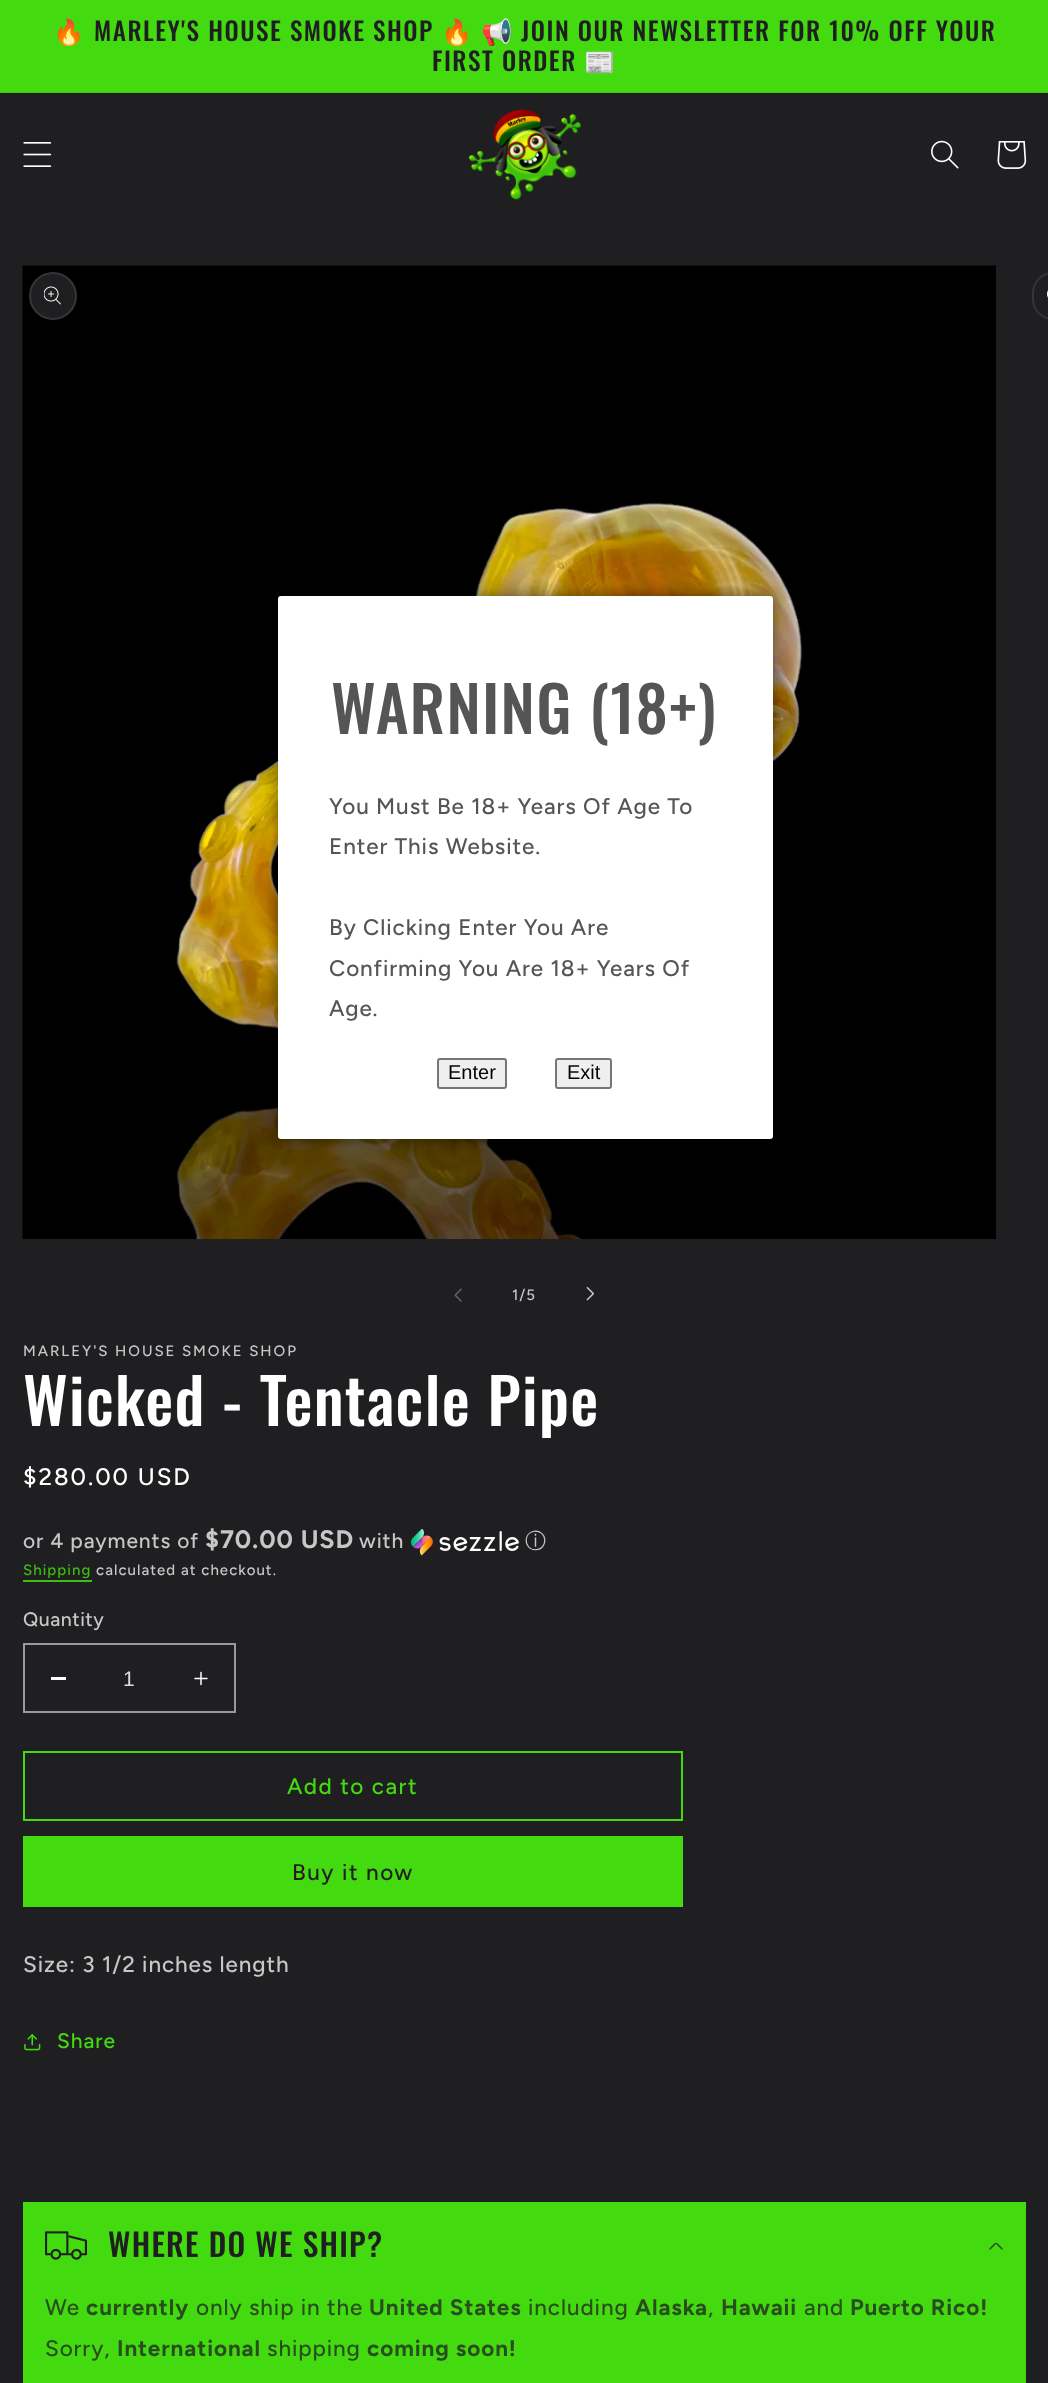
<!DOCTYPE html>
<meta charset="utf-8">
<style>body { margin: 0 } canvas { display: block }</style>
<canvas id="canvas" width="1048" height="2383"></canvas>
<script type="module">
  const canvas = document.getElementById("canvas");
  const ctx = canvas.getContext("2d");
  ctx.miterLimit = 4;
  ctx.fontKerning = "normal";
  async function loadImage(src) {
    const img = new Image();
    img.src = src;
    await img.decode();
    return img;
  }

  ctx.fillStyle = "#1f1f21";
  ctx.fillRect(0, 0, 1048, 2383);
  ctx.fillStyle = "#44da10";
  ctx.fillRect(0, 0, 1048, 92);
  ctx.fillStyle = "#41cb11";
  ctx.fillRect(0, 92, 1048, 1);
  ctx.letterSpacing = "1.5px";
  ctx.font = "25.25px Noto Color Emoji";
  ctx.fillStyle = "#1f1f21";
  ctx.fillText("🔥", 53, 41);
  ctx.font = "500 25.25px Oswald";
  ctx.fillText("MARLEY'S HOUSE SMOKE SHOP", 94, 41);
  ctx.font = "25.25px Noto Color Emoji";
  ctx.fillText("🔥", 441, 41);
  ctx.fillText("📢", 481, 41);
  ctx.font = "500 25.25px Oswald";
  ctx.fillText("JOIN OUR NEWSLETTER FOR 10% OFF YOUR", 521, 41);
  ctx.fillText("FIRST ORDER", 432, 71);
  ctx.font = "25.25px Noto Color Emoji";
  ctx.fillText("📰", 584, 71);
  ctx.drawImage(await loadImage("img1.png"), 23, 142, 29, 25);
  ctx.drawImage(await loadImage("img2.png"), 468, 109, 114, 91);
  ctx.drawImage(await loadImage("img3.png"), 931, 140, 28, 29);
  ctx.drawImage(await loadImage("img4.png"), 997, 141, 30, 28);
  ctx.drawImage(await loadImage("img5.png"), 22, 265, 974, 974);
  ctx.fillStyle = "rgba(0, 0, 0, 0.5)";
  ctx.filter = "blur(7.5px)";
  ctx.beginPath();
  ctx.roundRect(278, 596, 495, 543, 3);
  ctx.fill();
  ctx.filter = "none";
  ctx.fillStyle = "#ffffff";
  ctx.beginPath();
  ctx.roundRect(278, 596, 495, 543, 3);
  ctx.fill();
  ctx.letterSpacing = "1.25px";
  ctx.font = "500 63px Oswald";
  ctx.fillStyle = "#555555";
  ctx.fillText("WARNING (18+)", 331, 734);
  ctx.letterSpacing = "0.9px";
  ctx.font = "500 22.5px Figtree";
  ctx.fillText("You Must Be 18+ Years Of Age To", 329, 814);
  ctx.fillText("Enter This Website.", 329, 854);
  ctx.fillText("By Clicking Enter You Are", 329, 935);
  ctx.fillText("Confirming You Are 18+ Years Of", 329, 976);
  ctx.fillText("Age.", 329, 1016);
  ctx.fillStyle = "#efefef";
  ctx.beginPath();
  ctx.roundRect(438, 1059, 68, 29, 2);
  ctx.fill();
  ctx.strokeStyle = "#767676";
  ctx.lineWidth = 2;
  ctx.stroke();
  ctx.letterSpacing = "0px";
  ctx.font = "20px Liberation Sans";
  ctx.fillStyle = "#000000";
  ctx.fillText("Enter", 448, 1079);
  ctx.fillStyle = "#efefef";
  ctx.beginPath();
  ctx.roundRect(556, 1059, 55, 29, 2);
  ctx.fill();
  ctx.stroke();
  ctx.fillStyle = "#000000";
  ctx.fillText("Exit", 567, 1079);
  ctx.fillStyle = "#1f1f21";
  ctx.beginPath();
  ctx.arc(53, 296, 24, 0, Math.PI * 2);
  ctx.fill();
  ctx.beginPath();
  ctx.arc(53, 296, 23, 0, Math.PI * 2);
  ctx.strokeStyle = "rgba(255, 255, 255, 0.1)";
  ctx.stroke();
  ctx.drawImage(await loadImage("img6.png"), 44, 286, 17, 19);
  ctx.beginPath();
  ctx.roundRect(1033, 273, 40, 46, 23);
  ctx.strokeStyle = "#353537";
  ctx.stroke();
  ctx.drawImage(await loadImage("img7.png"), 1047, 290, 1, 8);
  ctx.drawImage(await loadImage("img8.png"), 454, 1288, 8, 14);
  ctx.letterSpacing = "1.05px";
  ctx.font = "500 15px Figtree";
  ctx.fillStyle = "#c7c7c8";
  ctx.fillText("1/5", 512, 1300);
  ctx.drawImage(await loadImage("img9.png"), 586, 1287, 8, 14);
  ctx.letterSpacing = "1.95px";
  ctx.fillText("MARLEY'S HOUSE SMOKE SHOP", 23, 1356);
  ctx.letterSpacing = "1.25px";
  ctx.font = "500 63px Oswald";
  ctx.fillStyle = "#ffffff";
  ctx.fillText("Wicked - Tentacle Pipe", 23, 1426);
  ctx.letterSpacing = "1.95px";
  ctx.font = "500 24px Figtree";
  ctx.fillText("$280.00 USD", 23, 1485);
  ctx.letterSpacing = "0.9px";
  ctx.font = "500 21px Figtree";
  ctx.fillStyle = "#c7c7c8";
  ctx.fillText("or 4 payments of", 23, 1548);
  ctx.font = "bold 25.25px Figtree";
  ctx.fillText("$70.00 USD", 205, 1548);
  ctx.font = "500 21px Figtree";
  ctx.fillText("with", 359, 1548);
  ctx.drawImage(await loadImage("img10.png"), 411, 1529, 108, 27);
  ctx.font = "500 21px WenQuanYi Zen Hei";
  ctx.fillText("ⓘ", 525, 1548);
  ctx.letterSpacing = "1.05px";
  ctx.font = "500 15px Figtree";
  ctx.fillStyle = "#3ebe13";
  ctx.fillText("Shipping", 23, 1575);
  ctx.fillRect(23, 1580, 69, 2);
  ctx.fillStyle = "#c7c7c8";
  ctx.fillText("calculated at checkout.", 96, 1575);
  ctx.letterSpacing = "0.5px";
  ctx.font = "500 19.5px Figtree";
  ctx.fillText("Quantity", 23, 1626);
  ctx.fillStyle = "#ffffff";
  ctx.fillRect(51, 1677, 15, 3);
  ctx.drawImage(await loadImage("img11.png"), 194, 1671, 14, 15);
  ctx.strokeStyle = "#9a9a9b";
  ctx.strokeRect(24, 1644, 211, 68);
  ctx.letterSpacing = "0px";
  ctx.font = "21px Liberation Sans";
  ctx.fillStyle = "#ddddde";
  ctx.fillText("1", 123, 1686);
  ctx.strokeStyle = "#44da10";
  ctx.strokeRect(24, 1752, 658, 68);
  ctx.letterSpacing = "1.5px";
  ctx.font = "500 22.5px Figtree";
  ctx.fillStyle = "#44da10";
  ctx.fillText("Add to cart", 287, 1794);
  ctx.fillRect(23, 1836, 660, 71);
  ctx.fillStyle = "#1f1f21";
  ctx.fillText("Buy it now", 292, 1880);
  ctx.letterSpacing = "0.9px";
  ctx.fillStyle = "#c7c7c8";
  ctx.fillText("Size: 3 1/2 inches length", 23, 1972);
  ctx.drawImage(await loadImage("img12.png"), 24, 2034, 17, 17);
  ctx.font = "500 21px Figtree";
  ctx.fillStyle = "#44da10";
  ctx.fillText("Share", 57, 2048);
  ctx.fillRect(23, 2202, 1003, 181);
  ctx.drawImage(await loadImage("img13.png"), 45, 2231, 42, 29);
  ctx.letterSpacing = "1.25px";
  ctx.font = "500 31.5px Oswald";
  ctx.fillStyle = "#1f1f21";
  ctx.fillText("WHERE DO WE SHIP?", 108, 2257);
  ctx.drawImage(await loadImage("img14.png"), 989, 2243, 14, 7);
  ctx.letterSpacing = "0.9px";
  ctx.font = "500 22.5px Figtree";
  ctx.fillStyle = "#284e1d";
  ctx.fillText("We", 45, 2315);
  ctx.font = "bold 22.5px Figtree";
  ctx.fillText("currently", 86, 2315);
  ctx.font = "500 22.5px Figtree";
  ctx.fillText("only ship in the", 196, 2315);
  ctx.font = "bold 22.5px Figtree";
  ctx.fillText("United States", 369, 2315);
  ctx.font = "500 22.5px Figtree";
  ctx.fillText("including", 528, 2315);
  ctx.font = "bold 22.5px Figtree";
  ctx.fillText("Alaska", 635, 2315);
  ctx.font = "500 22.5px Figtree";
  ctx.fillText(",", 708, 2315);
  ctx.font = "bold 22.5px Figtree";
  ctx.fillText("Hawaii", 721, 2315);
  ctx.font = "500 22.5px Figtree";
  ctx.fillText("and", 804, 2315);
  ctx.font = "bold 22.5px Figtree";
  ctx.fillText("Puerto Rico!", 850, 2315);
  ctx.font = "500 22.5px Figtree";
  ctx.fillText("Sorry,", 45, 2356);
  ctx.font = "bold 22.5px Figtree";
  ctx.fillText("International", 117, 2356);
  ctx.font = "500 22.5px Figtree";
  ctx.fillText("shipping", 267, 2356);
  ctx.font = "bold 22.5px Figtree";
  ctx.fillText("coming soon!", 367, 2356);
</script>
